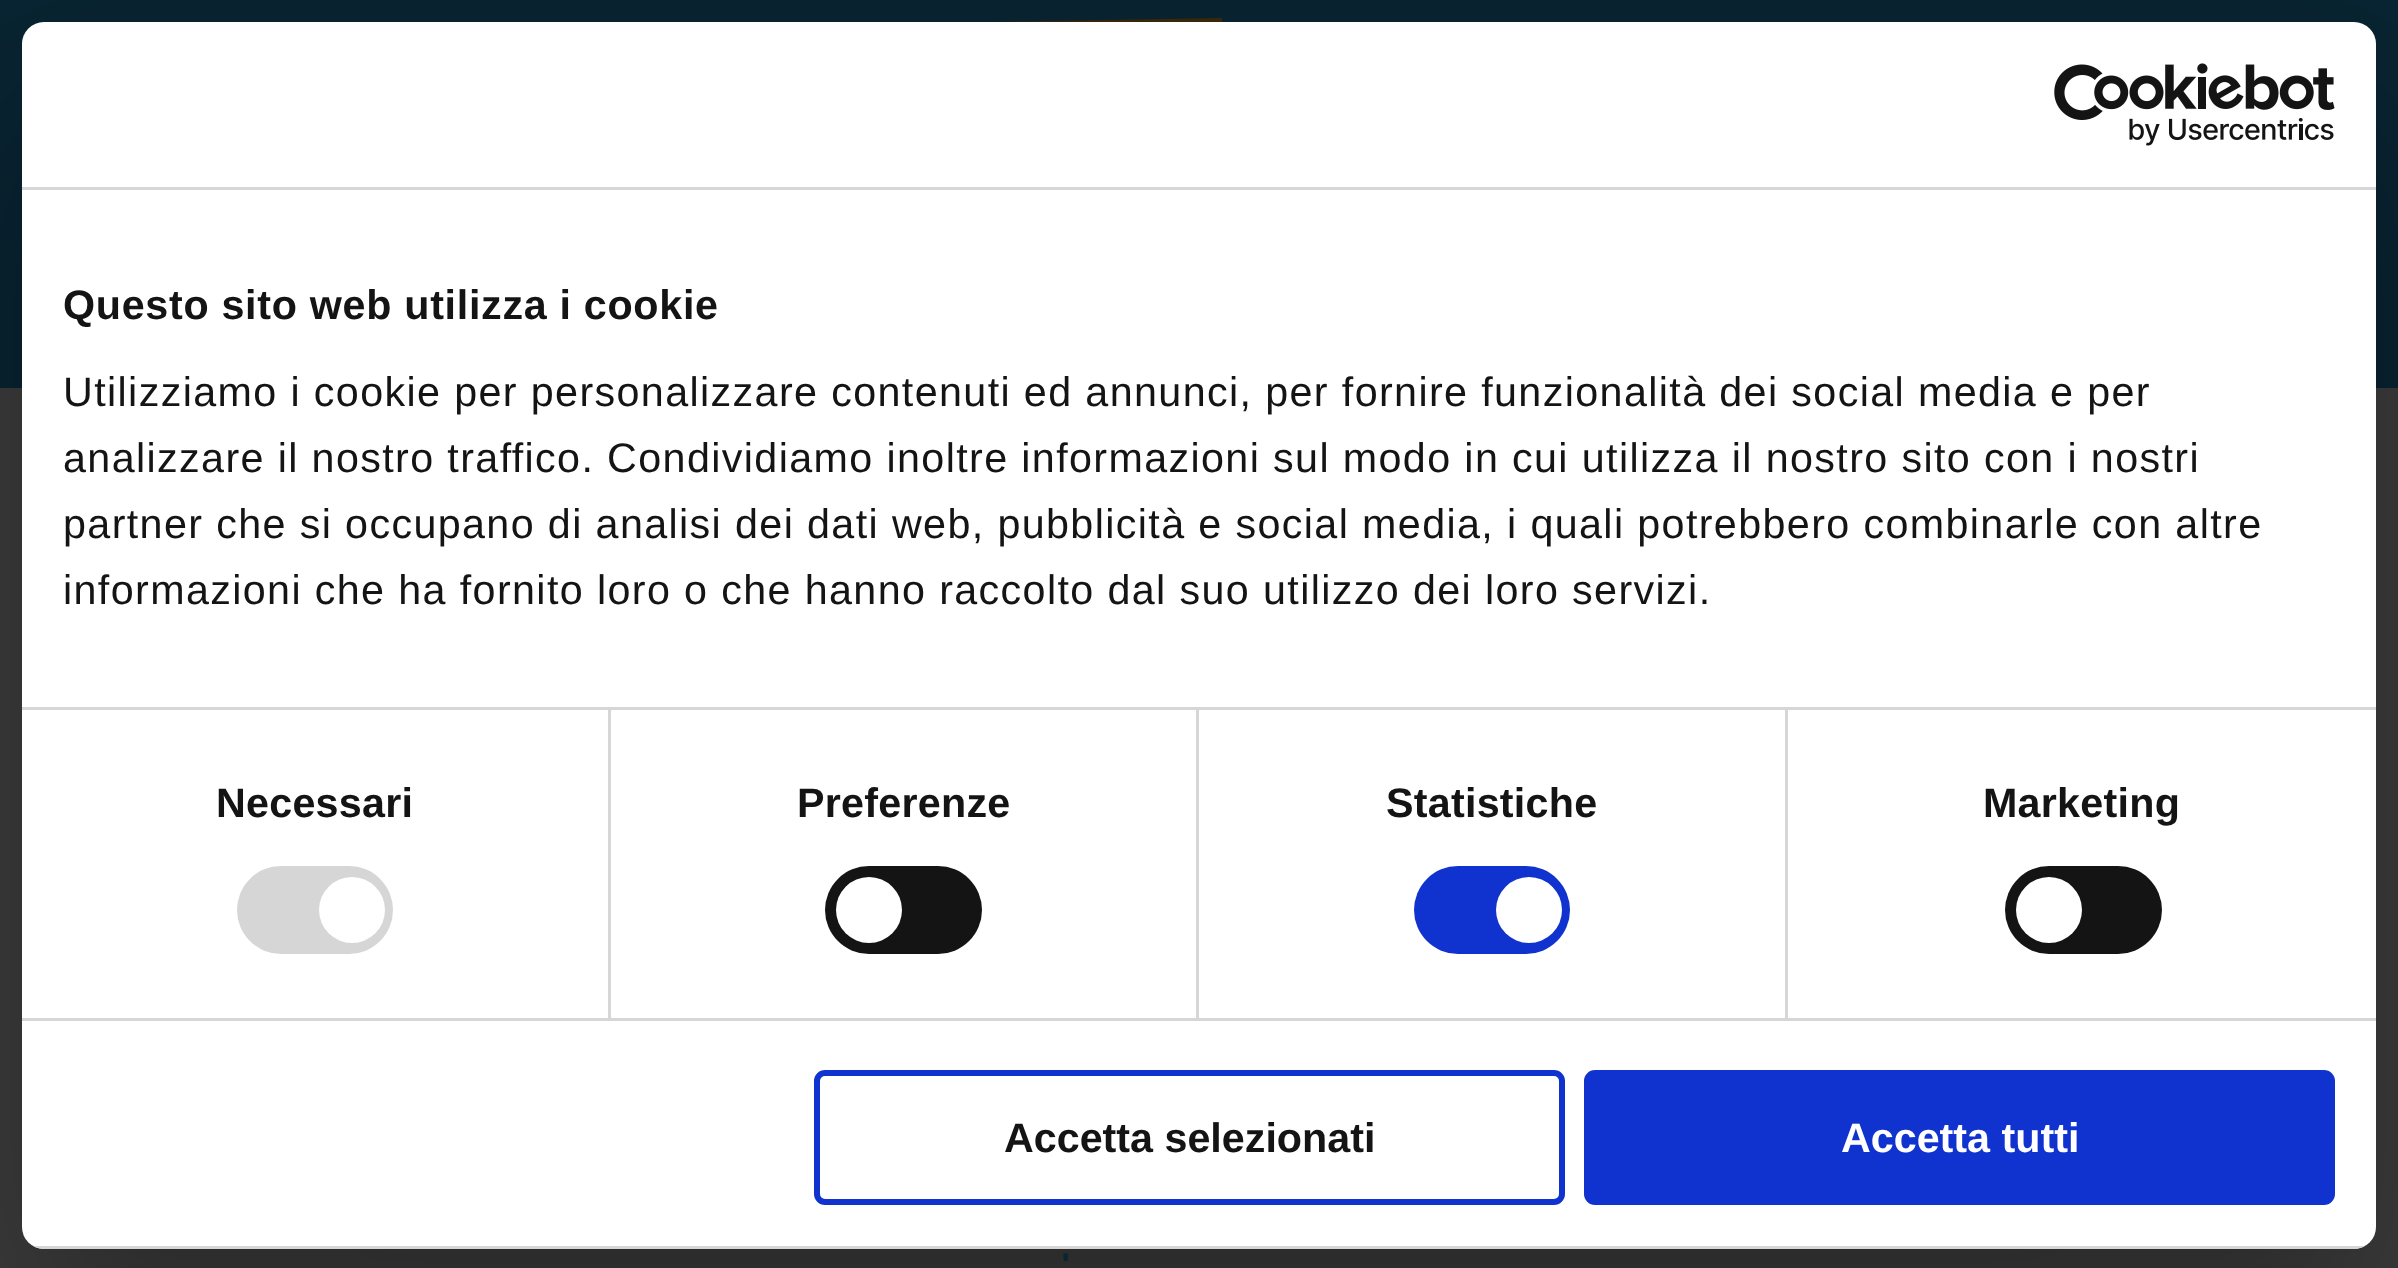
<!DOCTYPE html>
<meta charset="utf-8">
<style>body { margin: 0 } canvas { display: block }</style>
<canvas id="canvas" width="2398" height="1268"></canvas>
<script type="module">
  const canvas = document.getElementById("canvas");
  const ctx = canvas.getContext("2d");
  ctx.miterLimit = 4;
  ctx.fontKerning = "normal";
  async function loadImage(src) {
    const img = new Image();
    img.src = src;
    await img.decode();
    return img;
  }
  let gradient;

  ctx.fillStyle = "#3c3c3c";
  ctx.fillRect(0, 0, 2398, 1268);
  ctx.fillStyle = "#092432";
  ctx.fillRect(0, 0, 2398, 388);
  gradient = ctx.createLinearGradient(643, 75, 1222, 65);
  gradient.addColorStop(0, "#382009");
  gradient.addColorStop(1, "#3c2b09");
  ctx.fillStyle = gradient;
  ctx.beginPath();
  ctx.moveTo(642, 28);
  ctx.lineTo(1222, 18);
  ctx.lineTo(1223, 112);
  ctx.lineTo(644, 122);
  ctx.closePath();
  ctx.fill();
  ctx.fillStyle = "#222222";
  ctx.filter = "blur(20.5px)";
  ctx.beginPath();
  ctx.roundRect(382, 74, 1650, 1139, 6);
  ctx.fill();
  ctx.filter = "none";
  ctx.fillStyle = "rgba(0, 0, 0, 0.3)";
  ctx.filter = "blur(93.5px)";
  ctx.beginPath();
  ctx.roundRect(22, 110, 2354, 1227, 22);
  ctx.fill();
  ctx.filter = "none";
  ctx.fillStyle = "#ffffff";
  ctx.beginPath();
  ctx.roundRect(22, 22, 2354, 1227, 22);
  ctx.fill();
  ctx.fillStyle = "#d6d6d6";
  ctx.fillRect(22, 187, 2354, 3);
  ctx.drawImage(await loadImage("img1.png"), 2054, 63, 281, 83);
  ctx.fillRect(22, 707, 2354, 3);
  ctx.letterSpacing = "0.7px";
  ctx.font = "bold 41.25px Liberation Sans";
  ctx.fillStyle = "#141414";
  ctx.fillText("Questo sito web utilizza i cookie", 63, 319);
  ctx.letterSpacing = "1.38px";
  ctx.font = "41.25px Liberation Sans";
  ctx.fillText("Utilizziamo i cookie per personalizzare contenuti ed annunci, per fornire funzionalità dei social media e per", 63, 406);
  ctx.fillText("analizzare il nostro traffico. Condividiamo inoltre informazioni sul modo in cui utilizza il nostro sito con i nostri", 63, 472);
  ctx.fillText("partner che si occupano di analisi dei dati web, pubblicità e social media, i quali potrebbero combinarle con altre", 63, 538);
  ctx.fillText("informazioni che ha fornito loro o che hanno raccolto dal suo utilizzo dei loro servizi.", 63, 604);
  ctx.fillStyle = "#d6d6d6";
  ctx.fillRect(22, 1018, 2354, 3);
  ctx.fillRect(608, 710, 3, 308);
  ctx.letterSpacing = "0.25px";
  ctx.font = "bold 41.25px Liberation Sans";
  ctx.fillStyle = "#141414";
  ctx.fillText("Necessari", 216, 817);
  ctx.fillStyle = "#d6d6d6";
  ctx.beginPath();
  ctx.roundRect(237, 866, 156, 88, 44);
  ctx.fill();
  ctx.fillStyle = "#ffffff";
  ctx.beginPath();
  ctx.arc(352, 910, 33, 0, Math.PI * 2);
  ctx.fill();
  ctx.fillStyle = "#d6d6d6";
  ctx.fillRect(1196, 710, 3, 308);
  ctx.fillStyle = "#141414";
  ctx.fillText("Preferenze", 797, 817);
  ctx.beginPath();
  ctx.roundRect(825, 866, 157, 88, 44);
  ctx.fill();
  ctx.fillStyle = "#ffffff";
  ctx.beginPath();
  ctx.arc(869, 910, 33, 0, Math.PI * 2);
  ctx.fill();
  ctx.fillStyle = "#d6d6d6";
  ctx.fillRect(1785, 710, 3, 308);
  ctx.fillStyle = "#141414";
  ctx.fillText("Statistiche", 1386, 817);
  ctx.fillStyle = "#1032cf";
  ctx.beginPath();
  ctx.roundRect(1414, 866, 156, 88, 44);
  ctx.fill();
  ctx.fillStyle = "#ffffff";
  ctx.beginPath();
  ctx.arc(1529, 910, 33, 0, Math.PI * 2);
  ctx.fill();
  ctx.fillStyle = "#141414";
  ctx.fillText("Marketing", 1983, 817);
  ctx.beginPath();
  ctx.roundRect(2005, 866, 157, 88, 44);
  ctx.fill();
  ctx.fillStyle = "#ffffff";
  ctx.beginPath();
  ctx.arc(2049, 910, 33, 0, Math.PI * 2);
  ctx.fill();
  ctx.save();
  ctx.beginPath();
  ctx.roundRect(22, 22, 2354, 1227, 22);
  ctx.clip();
  ctx.fillStyle = "#d6d6d6";
  ctx.fillRect(33, 1246, 2332, 3);
  ctx.restore();
  ctx.beginPath();
  ctx.roundRect(817, 1073, 745, 129, 8);
  ctx.strokeStyle = "#1032cf";
  ctx.lineWidth = 6;
  ctx.stroke();
  ctx.letterSpacing = "0px";
  ctx.fillStyle = "#141414";
  ctx.fillText("Accetta selezionati", 1004, 1152);
  ctx.fillStyle = "#1032cf";
  ctx.beginPath();
  ctx.roundRect(1587, 1073, 745, 129, 8);
  ctx.fill();
  ctx.stroke();
  ctx.fillStyle = "#ffffff";
  ctx.fillText("Accetta tutti", 1841, 1152);
  ctx.font = "bold 33px Poppins";
  ctx.fillStyle = "#092432";
  ctx.fillText("'", 1062, 1280);
</script>
